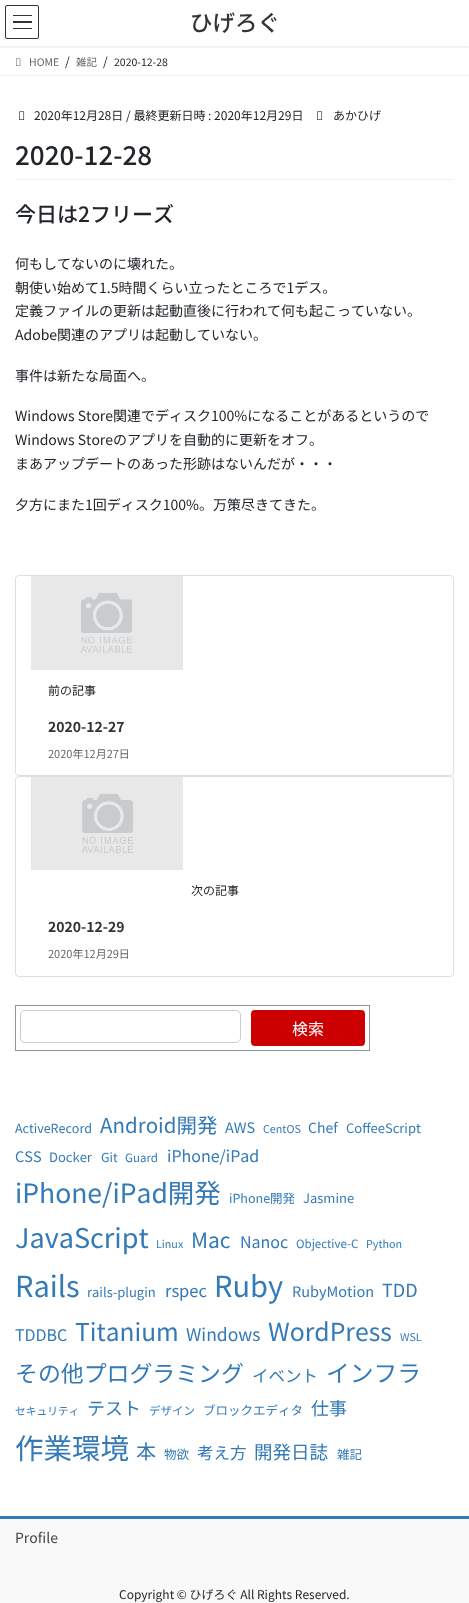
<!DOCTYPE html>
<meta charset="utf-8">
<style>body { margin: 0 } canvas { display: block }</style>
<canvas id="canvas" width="469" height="1603"></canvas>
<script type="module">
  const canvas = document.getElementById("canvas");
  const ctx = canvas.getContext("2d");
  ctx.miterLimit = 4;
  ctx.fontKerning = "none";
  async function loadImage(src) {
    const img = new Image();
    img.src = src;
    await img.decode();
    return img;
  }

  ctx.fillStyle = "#ffffff";
  ctx.fillRect(0, 0, 469, 1603);
  ctx.save();
  ctx.beginPath();
  ctx.rect(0, 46, 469, 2);
  ctx.clip();
  ctx.fillStyle = "rgba(0, 0, 0, 0.1)";
  ctx.filter = "blur(1.5px)";
  ctx.beginPath();
  ctx.rect(0, 1, 469, 46);
  ctx.fill();
  ctx.filter = "none";
  ctx.restore();
  ctx.fillStyle = "#333333";
  ctx.fillRect(13, 15, 19, 1);
  ctx.fillRect(13, 21, 19, 2);
  ctx.fillRect(13, 28, 19, 1);
  ctx.beginPath();
  ctx.roundRect(5.5, 5.5, 33, 33, 1.5);
  ctx.strokeStyle = "#333333";
  ctx.stroke();
  ctx.font = "500 22.5px Noto Sans JP";
  ctx.fillText("ひげろぐ", 190, 31);
  ctx.fillStyle = "#f2f2f2";
  ctx.fillRect(0, 75, 469, 1);
  ctx.drawImage(await loadImage("img1.png"), 16, 58, 5, 8);
  ctx.font = "10.5px Noto Sans JP";
  ctx.fillStyle = "#666666";
  ctx.fillText("HOME", 29, 66);
  ctx.font = "12px Noto Sans JP";
  ctx.fillStyle = "#212529";
  ctx.fillText("/", 65, 66);
  ctx.font = "10.5px Noto Sans JP";
  ctx.fillStyle = "#666666";
  ctx.fillText("雑記", 76, 66);
  ctx.font = "12px Noto Sans JP";
  ctx.fillStyle = "#212529";
  ctx.fillText("/", 103, 66);
  ctx.font = "10.5px Noto Sans JP";
  ctx.fillText("2020-12-28", 114, 66);
  ctx.fillStyle = "#f2f2f2";
  ctx.fillRect(15, 179, 439, 1);
  ctx.drawImage(await loadImage("img2.png"), 19, 111, 6, 9);
  ctx.font = "12px Noto Sans JP";
  ctx.fillStyle = "#212529";
  ctx.fillText("2020年12月28日", 34, 120);
  ctx.fillText("/ 最終更新日時 : 2020年12月29日", 126, 120);
  ctx.drawImage(await loadImage("img2.png"), 317, 111, 6, 9);
  ctx.fillText("あかひげ", 333, 120);
  ctx.font = "500 26px Noto Sans JP";
  ctx.fillText("2020-12-28", 15, 165);
  ctx.font = "500 21px Noto Sans JP";
  ctx.fillText("今日は2フリーズ", 15, 222);
  ctx.font = "14px Noto Sans JP";
  ctx.fillText("何もしてないのに壊れた。", 15, 269);
  ctx.fillText("朝使い始めて1.5時間くらい立ったところで1デス。", 15, 293);
  ctx.fillText("定義ファイルの更新は起動直後に行われて何も起こっていない。", 15, 316);
  ctx.fillText("Adobe関連のアプリは起動していない。", 15, 340);
  ctx.fillText("事件は新たな局面へ。", 15, 381);
  ctx.fillText("Windows Store関連でディスク100%になることがあるというので", 15, 421);
  ctx.fillText("Windows Storeのアプリを自動的に更新をオフ。", 15, 445);
  ctx.fillText("まあアップデートのあった形跡はないんだが・・・", 15, 469);
  ctx.fillText("夕方にまた1回ディスク100%。万策尽きてきた。", 15, 510);
  ctx.beginPath();
  ctx.roundRect(15.5, 575.5, 438, 200, 3.5);
  ctx.strokeStyle = "#dfdfdf";
  ctx.stroke();
  ctx.drawImage(await loadImage("img3.png"), 31, 576, 151, 94);
  ctx.fillStyle = "#e5e5e5";
  ctx.fillRect(182, 576, 1, 94);
  ctx.font = "12px Noto Sans JP";
  ctx.fillStyle = "#212529";
  ctx.fillText("前の記事", 48, 695);
  ctx.font = "bold 14px Noto Sans JP";
  ctx.fillStyle = "#333333";
  ctx.fillText("2020-12-27", 48, 732);
  ctx.font = "11px Noto Sans JP";
  ctx.fillStyle = "#666666";
  ctx.fillText("2020年12月27日", 48, 758);
  ctx.beginPath();
  ctx.roundRect(15.5, 776.5, 438, 200, 3.5);
  ctx.stroke();
  ctx.drawImage(await loadImage("img4.png"), 32, 777, 151, 93);
  ctx.fillStyle = "#e5e5e5";
  ctx.fillRect(31, 777, 1, 93);
  ctx.font = "12px Noto Sans JP";
  ctx.fillStyle = "#212529";
  ctx.fillText("次の記事", 191, 895);
  ctx.font = "bold 14px Noto Sans JP";
  ctx.fillStyle = "#333333";
  ctx.fillText("2020-12-29", 48, 932);
  ctx.font = "11px Noto Sans JP";
  ctx.fillStyle = "#666666";
  ctx.fillText("2020年12月29日", 48, 958);
  ctx.strokeStyle = "#949494";
  ctx.strokeRect(15.5, 1005.5, 354, 45);
  ctx.beginPath();
  ctx.roundRect(20.5, 1010.5, 220, 32, 4.5);
  ctx.strokeStyle = "#cccccc";
  ctx.stroke();
  ctx.fillStyle = "#cc0000";
  ctx.beginPath();
  ctx.roundRect(251, 1010, 114, 36, 4);
  ctx.fill();
  ctx.font = "16px Noto Sans JP";
  ctx.fillStyle = "#ffffff";
  ctx.fillText("検索", 292, 1035);
  ctx.font = "12.5px Noto Sans JP";
  ctx.fillStyle = "#337ab7";
  ctx.fillText("ActiveRecord", 15, 1133);
  ctx.font = "20.5px Noto Sans JP";
  ctx.fillText("Android開発", 100, 1133);
  ctx.font = "14.5px Noto Sans JP";
  ctx.fillText("AWS", 225, 1133);
  ctx.font = "10.75px Noto Sans JP";
  ctx.fillText("CentOS", 263, 1133);
  ctx.font = "14px Noto Sans JP";
  ctx.fillText("Chef", 308, 1133);
  ctx.font = "13px Noto Sans JP";
  ctx.fillText("CoffeeScript", 346, 1133);
  ctx.font = "14.5px Noto Sans JP";
  ctx.fillText("CSS", 15, 1162);
  ctx.font = "13px Noto Sans JP";
  ctx.fillText("Docker", 49, 1162);
  ctx.font = "12.5px Noto Sans JP";
  ctx.fillText("Git", 101, 1162);
  ctx.font = "11.5px Noto Sans JP";
  ctx.fillText("Guard", 125, 1162);
  ctx.font = "16px Noto Sans JP";
  ctx.fillText("iPhone/iPad", 167, 1162);
  ctx.font = "26.5px Noto Sans JP";
  ctx.fillText("iPhone/iPad開発", 15, 1203);
  ctx.font = "12.5px Noto Sans JP";
  ctx.fillText("iPhone開発", 229, 1203);
  ctx.font = "13px Noto Sans JP";
  ctx.fillText("Jasmine", 303, 1203);
  ctx.font = "27px Noto Sans JP";
  ctx.fillText("JavaScript", 15, 1248);
  ctx.font = "10.75px Noto Sans JP";
  ctx.fillText("Linux", 156, 1248);
  ctx.font = "21px Noto Sans JP";
  ctx.fillText("Mac", 191, 1248);
  ctx.font = "16px Noto Sans JP";
  ctx.fillText("Nanoc", 240, 1248);
  ctx.font = "11.5px Noto Sans JP";
  ctx.fillText("Objective-C", 296, 1248);
  ctx.font = "10.75px Noto Sans JP";
  ctx.fillText("Python", 366, 1248);
  ctx.font = "29px Noto Sans JP";
  ctx.fillText("Rails", 15, 1297);
  ctx.font = "13px Noto Sans JP";
  ctx.fillText("rails-plugin", 87, 1297);
  ctx.font = "16.5px Noto Sans JP";
  ctx.fillText("rspec", 165, 1297);
  ctx.font = "29px Noto Sans JP";
  ctx.fillText("Ruby", 214, 1297);
  ctx.font = "14.5px Noto Sans JP";
  ctx.fillText("RubyMotion", 292, 1297);
  ctx.font = "18px Noto Sans JP";
  ctx.fillText("TDD", 382, 1297);
  ctx.font = "16px Noto Sans JP";
  ctx.fillText("TDDBC", 15, 1341);
  ctx.font = "24.5px Noto Sans JP";
  ctx.fillText("Titanium", 75, 1341);
  ctx.font = "17.5px Noto Sans JP";
  ctx.fillText("Windows", 186, 1341);
  ctx.font = "24.75px Noto Sans JP";
  ctx.fillText("WordPress", 268, 1341);
  ctx.font = "10.75px Noto Sans JP";
  ctx.fillText("WSL", 400, 1341);
  ctx.font = "22.9px Noto Sans JP";
  ctx.fillText("その他プログラミング", 15, 1382);
  ctx.font = "16.5px Noto Sans JP";
  ctx.fillText("イベント", 252, 1382);
  ctx.font = "23.75px Noto Sans JP";
  ctx.fillText("インフラ", 326, 1382);
  ctx.font = "10.75px Noto Sans JP";
  ctx.fillText("セキュリティ", 15, 1415);
  ctx.font = "18px Noto Sans JP";
  ctx.fillText("テスト", 87, 1415);
  ctx.font = "11.5px Noto Sans JP";
  ctx.fillText("デザイン", 149, 1415);
  ctx.font = "12.5px Noto Sans JP";
  ctx.fillText("ブロックエディタ", 203, 1415);
  ctx.font = "18px Noto Sans JP";
  ctx.fillText("仕事", 311, 1415);
  ctx.font = "28.5px Noto Sans JP";
  ctx.fillText("作業環境", 15, 1459);
  ctx.font = "20px Noto Sans JP";
  ctx.fillText("本", 136, 1459);
  ctx.font = "12.5px Noto Sans JP";
  ctx.fillText("物欲", 164, 1459);
  ctx.font = "16.5px Noto Sans JP";
  ctx.fillText("考え方", 197, 1459);
  ctx.font = "18.5px Noto Sans JP";
  ctx.fillText("開発日誌", 254, 1459);
  ctx.font = "12.5px Noto Sans JP";
  ctx.fillText("雑記", 337, 1459);
  ctx.fillStyle = "#f9f9f9";
  ctx.fillRect(0, 1519, 469, 84);
  ctx.fillStyle = "#337ab7";
  ctx.fillRect(0, 1516, 469, 3);
  ctx.font = "14px Noto Sans JP";
  ctx.fillStyle = "#464646";
  ctx.fillText("Profile", 15, 1543);
  ctx.font = "12px Noto Sans JP";
  ctx.fillStyle = "#212529";
  ctx.fillText("Copyright © ひげろぐ All Rights Reserved.", 119, 1599);
</script>
